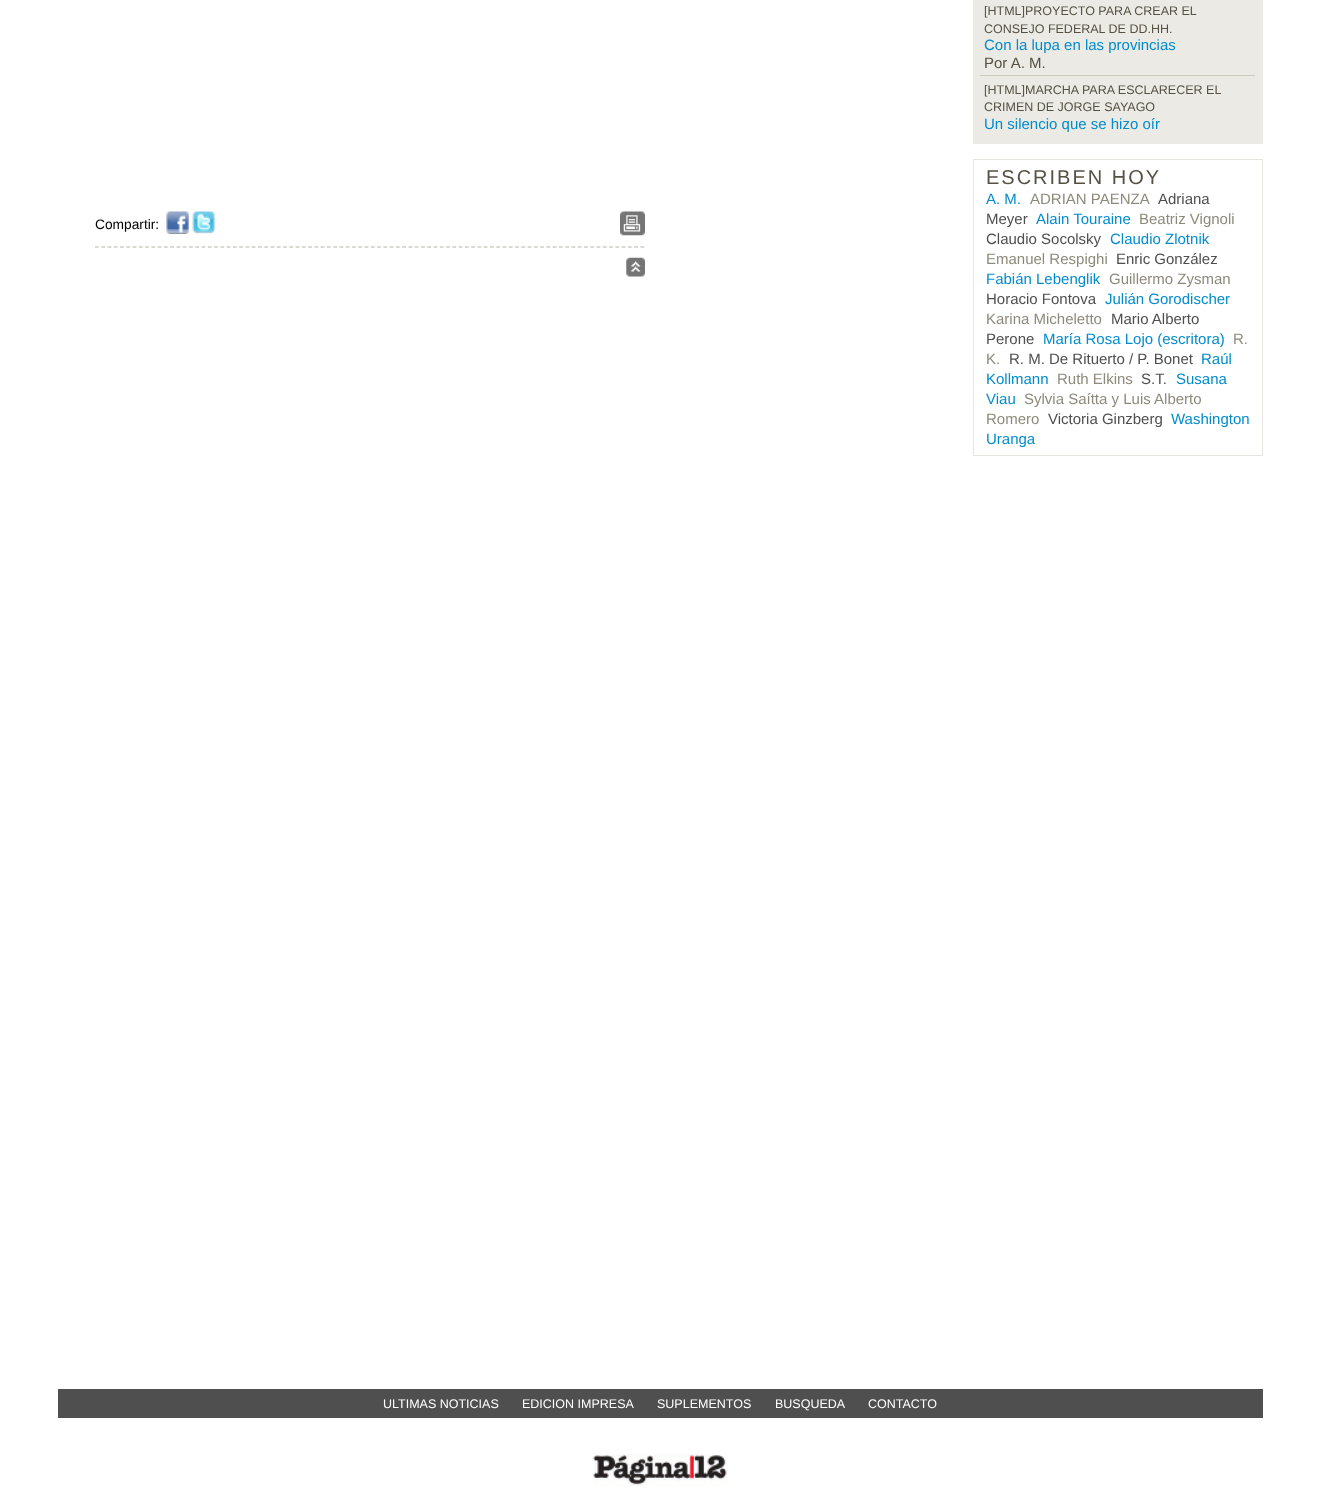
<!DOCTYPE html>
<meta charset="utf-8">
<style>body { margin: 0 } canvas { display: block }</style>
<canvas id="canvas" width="1319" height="1493"></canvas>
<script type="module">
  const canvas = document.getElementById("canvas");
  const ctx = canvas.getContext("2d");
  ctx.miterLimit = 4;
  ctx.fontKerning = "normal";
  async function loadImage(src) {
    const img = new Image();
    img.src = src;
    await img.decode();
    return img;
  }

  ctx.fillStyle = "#ffffff";
  ctx.fillRect(0, 0, 1319, 1493);
  ctx.beginPath();
  ctx.moveTo(95, 247);
  ctx.lineTo(645, 247);
  ctx.strokeStyle = "#b4b2a8";
  ctx.lineWidth = 1.2;
  ctx.setLineDash([3.75, 2.52]);
  ctx.stroke();
  ctx.font = "13.75px Liberation Sans";
  ctx.fillStyle = "#000000";
  ctx.fillText("Compartir:", 95, 229);
  ctx.drawImage(await loadImage("img1.png"), 166, 211, 23, 23);
  ctx.drawImage(await loadImage("img2.png"), 192, 211, 23, 23);
  ctx.drawImage(await loadImage("img3.png"), 620, 211, 25, 25);
  ctx.drawImage(await loadImage("img4.png"), 626, 257, 19, 20);
  ctx.fillStyle = "#ebeae5";
  ctx.fillRect(973, 0, 290, 144);
  ctx.font = "12.5px Liberation Sans";
  ctx.fillStyle = "#565144";
  ctx.fillText("[HTML]PROYECTO PARA CREAR EL", 984, 15);
  ctx.fillText("CONSEJO FEDERAL DE DD.HH.", 984, 33);
  ctx.font = "15px Liberation Sans";
  ctx.fillStyle = "#028ccd";
  ctx.fillText("Con la lupa en las provincias", 984, 50);
  ctx.fillStyle = "#565144";
  ctx.fillText("Por A. M.", 984, 68);
  ctx.fillStyle = "#ccc9bd";
  ctx.fillRect(980, 75, 275, 1);
  ctx.font = "12.5px Liberation Sans";
  ctx.fillStyle = "#565144";
  ctx.fillText("[HTML]MARCHA PARA ESCLARECER EL", 984, 94);
  ctx.fillText("CRIMEN DE JORGE SAYAGO", 984, 111);
  ctx.font = "15px Liberation Sans";
  ctx.fillStyle = "#028ccd";
  ctx.fillText("Un silencio que se hizo oír", 984, 129);
  ctx.strokeStyle = "#e6e5df";
  ctx.lineWidth = 1;
  ctx.setLineDash([]);
  ctx.strokeRect(973.5, 159.5, 289, 296);
  ctx.letterSpacing = "2px";
  ctx.font = "20px Liberation Sans";
  ctx.fillStyle = "#565144";
  ctx.fillText("ESCRIBEN HOY", 986, 184);
  ctx.letterSpacing = "0px";
  ctx.font = "15px Liberation Sans";
  ctx.fillStyle = "#028ccd";
  ctx.fillText("A. M.", 986, 204);
  ctx.fillStyle = "#8e8a7b";
  ctx.fillText("ADRIAN PAENZA", 1030, 204);
  ctx.fillStyle = "#504f4f";
  ctx.fillText("Adriana", 1158, 204);
  ctx.fillText("Meyer", 986, 224);
  ctx.fillStyle = "#028ccd";
  ctx.fillText("Alain Touraine", 1036, 224);
  ctx.fillStyle = "#8e8a7b";
  ctx.fillText("Beatriz Vignoli", 1139, 224);
  ctx.fillStyle = "#504f4f";
  ctx.fillText("Claudio Socolsky", 986, 244);
  ctx.fillStyle = "#028ccd";
  ctx.fillText("Claudio Zlotnik", 1110, 244);
  ctx.fillStyle = "#8e8a7b";
  ctx.fillText("Emanuel Respighi", 986, 264);
  ctx.fillStyle = "#504f4f";
  ctx.fillText("Enric González", 1116, 264);
  ctx.fillStyle = "#028ccd";
  ctx.fillText("Fabián Lebenglik", 986, 284);
  ctx.fillStyle = "#8e8a7b";
  ctx.fillText("Guillermo Zysman", 1109, 284);
  ctx.fillStyle = "#504f4f";
  ctx.fillText("Horacio Fontova", 986, 304);
  ctx.fillStyle = "#028ccd";
  ctx.fillText("Julián Gorodischer", 1105, 304);
  ctx.fillStyle = "#8e8a7b";
  ctx.fillText("Karina Micheletto", 986, 324);
  ctx.fillStyle = "#504f4f";
  ctx.fillText("Mario Alberto", 1111, 324);
  ctx.fillText("Perone", 986, 344);
  ctx.fillStyle = "#028ccd";
  ctx.fillText("María Rosa Lojo (escritora)", 1043, 344);
  ctx.fillStyle = "#8e8a7b";
  ctx.fillText("R.", 1233, 344);
  ctx.fillText("K.", 986, 364);
  ctx.fillStyle = "#504f4f";
  ctx.fillText("R. M. De Rituerto / P. Bonet", 1009, 364);
  ctx.fillStyle = "#028ccd";
  ctx.fillText("Raúl", 1201, 364);
  ctx.fillText("Kollmann", 986, 384);
  ctx.fillStyle = "#8e8a7b";
  ctx.fillText("Ruth Elkins", 1057, 384);
  ctx.fillStyle = "#504f4f";
  ctx.fillText("S.T.", 1141, 384);
  ctx.fillStyle = "#028ccd";
  ctx.fillText("Susana", 1176, 384);
  ctx.fillText("Viau", 986, 404);
  ctx.fillStyle = "#8e8a7b";
  ctx.fillText("Sylvia Saítta y Luis Alberto", 1024, 404);
  ctx.fillText("Romero", 986, 424);
  ctx.fillStyle = "#504f4f";
  ctx.fillText("Victoria Ginzberg", 1048, 424);
  ctx.fillStyle = "#028ccd";
  ctx.fillText("Washington", 1171, 424);
  ctx.fillText("Uranga", 986, 444);
  ctx.fillStyle = "#504f4f";
  ctx.fillRect(58, 1389, 1205, 29);
  ctx.font = "12.5px Liberation Sans";
  ctx.fillStyle = "#ffffff";
  ctx.fillText("ULTIMAS NOTICIAS", 383, 1408);
  ctx.fillText("EDICION IMPRESA", 522, 1408);
  ctx.fillText("SUPLEMENTOS", 657, 1408);
  ctx.fillText("BUSQUEDA", 775, 1408);
  ctx.fillText("CONTACTO", 868, 1408);
  ctx.drawImage(await loadImage("img5.png"), 593, 1454, 135, 32);
</script>
